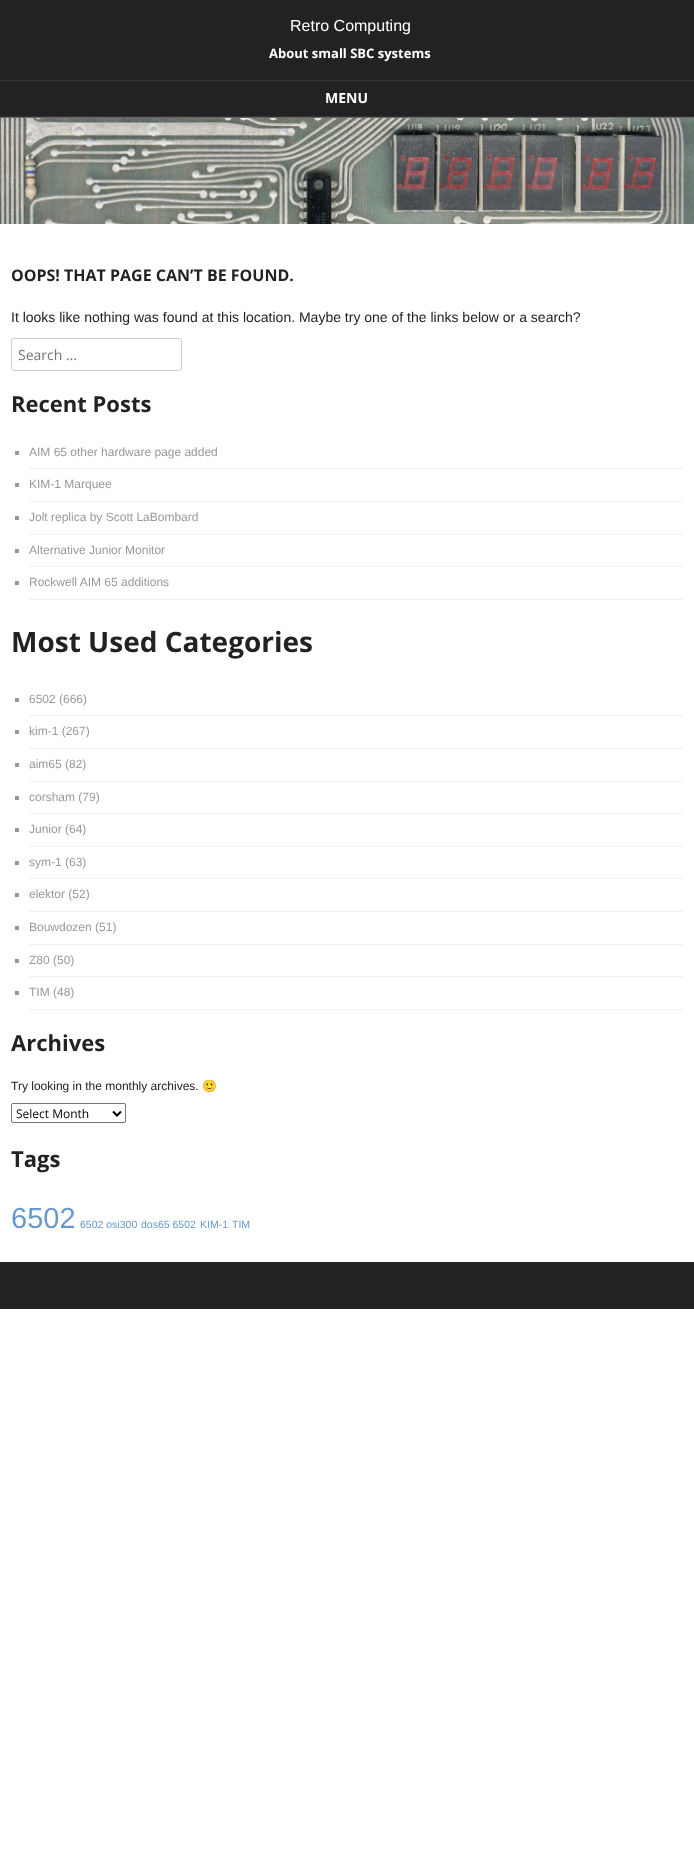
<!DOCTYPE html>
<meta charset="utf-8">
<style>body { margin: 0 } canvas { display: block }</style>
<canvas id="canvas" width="694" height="1876"></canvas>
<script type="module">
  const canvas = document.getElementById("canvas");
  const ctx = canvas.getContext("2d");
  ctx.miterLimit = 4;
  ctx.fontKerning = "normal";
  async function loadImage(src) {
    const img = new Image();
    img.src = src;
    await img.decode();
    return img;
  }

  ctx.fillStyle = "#ffffff";
  ctx.fillRect(0, 0, 694, 1876);
  ctx.fillStyle = "#222222";
  ctx.fillRect(0, 0, 694, 116);
  ctx.fillStyle = "#666666";
  ctx.fillRect(0, 117, 694, 1);
  ctx.font = "16px Liberation Sans";
  ctx.fillStyle = "#ffffff";
  ctx.fillText("Retro Computing", 290, 31);
  ctx.font = "bold 13px Open Sans";
  ctx.fillText("About small SBC systems", 269, 58);
  ctx.fillStyle = "#333333";
  ctx.fillRect(0, 80, 694, 1);
  ctx.fillRect(0, 116, 694, 1);
  ctx.font = "bold 14px Open Sans";
  ctx.fillStyle = "#ffffff";
  ctx.fillText("MENU", 325, 103);
  ctx.drawImage(await loadImage("img1.png"), 0, 118, 694, 106);
  ctx.font = "bold 16px Open Sans";
  ctx.fillStyle = "#222222";
  ctx.fillText("OOPS! THAT PAGE CAN’T BE FOUND.", 11, 281);
  ctx.font = "14px Liberation Sans";
  ctx.fillText("It looks like nothing was found at this location. Maybe try one of the links below or a search?", 11, 322);
  ctx.beginPath();
  ctx.roundRect(11.5, 338.5, 170, 32, 2.5);
  ctx.strokeStyle = "#cccccc";
  ctx.stroke();
  ctx.font = "14px Open Sans";
  ctx.fillStyle = "#757575";
  ctx.fillText("Search …", 18, 360);
  ctx.font = "bold 22px Open Sans";
  ctx.fillStyle = "#222222";
  ctx.fillText("Recent Posts", 11, 412);
  ctx.fillStyle = "#efefef";
  ctx.fillRect(29, 468, 654, 1);
  ctx.fillStyle = "#999999";
  ctx.fillRect(15, 451, 4, 4);
  ctx.font = "12px Liberation Sans";
  ctx.fillText("AIM 65 other hardware page added", 29, 456);
  ctx.fillStyle = "#efefef";
  ctx.fillRect(29, 501, 654, 1);
  ctx.fillStyle = "#999999";
  ctx.fillRect(15, 483, 4, 4);
  ctx.fillText("KIM-1 Marquee", 29, 488);
  ctx.fillStyle = "#efefef";
  ctx.fillRect(29, 534, 654, 1);
  ctx.fillStyle = "#999999";
  ctx.fillRect(15, 516, 4, 4);
  ctx.fillText("Jolt replica by Scott LaBombard", 29, 521);
  ctx.fillStyle = "#efefef";
  ctx.fillRect(29, 566, 654, 1);
  ctx.fillStyle = "#999999";
  ctx.fillRect(15, 549, 4, 4);
  ctx.fillText("Alternative Junior Monitor", 29, 554);
  ctx.fillStyle = "#efefef";
  ctx.fillRect(29, 599, 654, 1);
  ctx.fillStyle = "#999999";
  ctx.fillRect(15, 581, 4, 4);
  ctx.fillText("Rockwell AIM 65 additions", 29, 586);
  ctx.font = "bold 28px Open Sans";
  ctx.fillStyle = "#222222";
  ctx.fillText("Most Used Categories", 11, 652);
  ctx.fillStyle = "#efefef";
  ctx.fillRect(29, 715, 654, 1);
  ctx.fillStyle = "#999999";
  ctx.fillRect(15, 698, 4, 4);
  ctx.font = "12px Liberation Sans";
  ctx.fillText("6502 (666)", 29, 703);
  ctx.fillStyle = "#efefef";
  ctx.fillRect(29, 748, 654, 1);
  ctx.fillStyle = "#999999";
  ctx.fillRect(15, 730, 4, 4);
  ctx.fillText("kim-1 (267)", 29, 735);
  ctx.fillStyle = "#efefef";
  ctx.fillRect(29, 781, 654, 1);
  ctx.fillStyle = "#999999";
  ctx.fillRect(15, 763, 4, 4);
  ctx.fillText("aim65 (82)", 29, 768);
  ctx.fillStyle = "#efefef";
  ctx.fillRect(29, 813, 654, 1);
  ctx.fillStyle = "#999999";
  ctx.fillRect(15, 796, 4, 4);
  ctx.fillText("corsham (79)", 29, 801);
  ctx.fillStyle = "#efefef";
  ctx.fillRect(29, 846, 654, 1);
  ctx.fillStyle = "#999999";
  ctx.fillRect(15, 828, 4, 4);
  ctx.fillText("Junior (64)", 29, 833);
  ctx.fillStyle = "#efefef";
  ctx.fillRect(29, 878, 654, 1);
  ctx.fillStyle = "#999999";
  ctx.fillRect(15, 861, 4, 4);
  ctx.fillText("sym-1 (63)", 29, 866);
  ctx.fillStyle = "#efefef";
  ctx.fillRect(29, 911, 654, 1);
  ctx.fillStyle = "#999999";
  ctx.fillRect(15, 893, 4, 4);
  ctx.fillText("elektor (52)", 29, 898);
  ctx.fillStyle = "#efefef";
  ctx.fillRect(29, 944, 654, 1);
  ctx.fillStyle = "#999999";
  ctx.fillRect(15, 926, 4, 4);
  ctx.fillText("Bouwdozen (51)", 29, 931);
  ctx.fillStyle = "#efefef";
  ctx.fillRect(29, 976, 654, 1);
  ctx.fillStyle = "#999999";
  ctx.fillRect(15, 959, 4, 4);
  ctx.fillText("Z80 (50)", 29, 964);
  ctx.fillStyle = "#efefef";
  ctx.fillRect(29, 1009, 654, 1);
  ctx.fillStyle = "#999999";
  ctx.fillRect(15, 991, 4, 4);
  ctx.fillText("TIM (48)", 29, 996);
  ctx.font = "bold 22px Open Sans";
  ctx.fillStyle = "#222222";
  ctx.fillText("Archives", 11, 1051);
  ctx.font = "12px Liberation Sans";
  ctx.fillText("Try looking in the monthly archives.", 11, 1090);
  ctx.font = "12px Noto Color Emoji";
  ctx.fillText("🙂", 202, 1090);
  ctx.beginPath();
  ctx.roundRect(11.5, 1103.5, 114, 19, 1.5);
  ctx.strokeStyle = "#767676";
  ctx.stroke();
  ctx.beginPath();
  ctx.moveTo(113, 1111.5);
  ctx.lineTo(117, 1115.5);
  ctx.lineTo(121, 1111.5);
  ctx.strokeStyle = "#000000";
  ctx.lineWidth = 2;
  ctx.stroke();
  ctx.font = "12px Open Sans";
  ctx.fillStyle = "#000000";
  ctx.fillText("Select Month", 16, 1118);
  ctx.font = "bold 22px Open Sans";
  ctx.fillStyle = "#222222";
  ctx.fillText("Tags", 11, 1167);
  ctx.font = "29px Liberation Sans";
  ctx.fillStyle = "#6699cc";
  ctx.fillText("6502", 11, 1228);
  ctx.font = "10.5px Liberation Sans";
  ctx.fillText("6502 osi300", 80, 1228);
  ctx.fillText("dos65 6502", 141, 1228);
  ctx.fillText("KIM-1", 200, 1228);
  ctx.fillText("TIM", 232, 1228);
  ctx.fillStyle = "#222222";
  ctx.fillRect(0, 1262, 694, 47);
</script>
